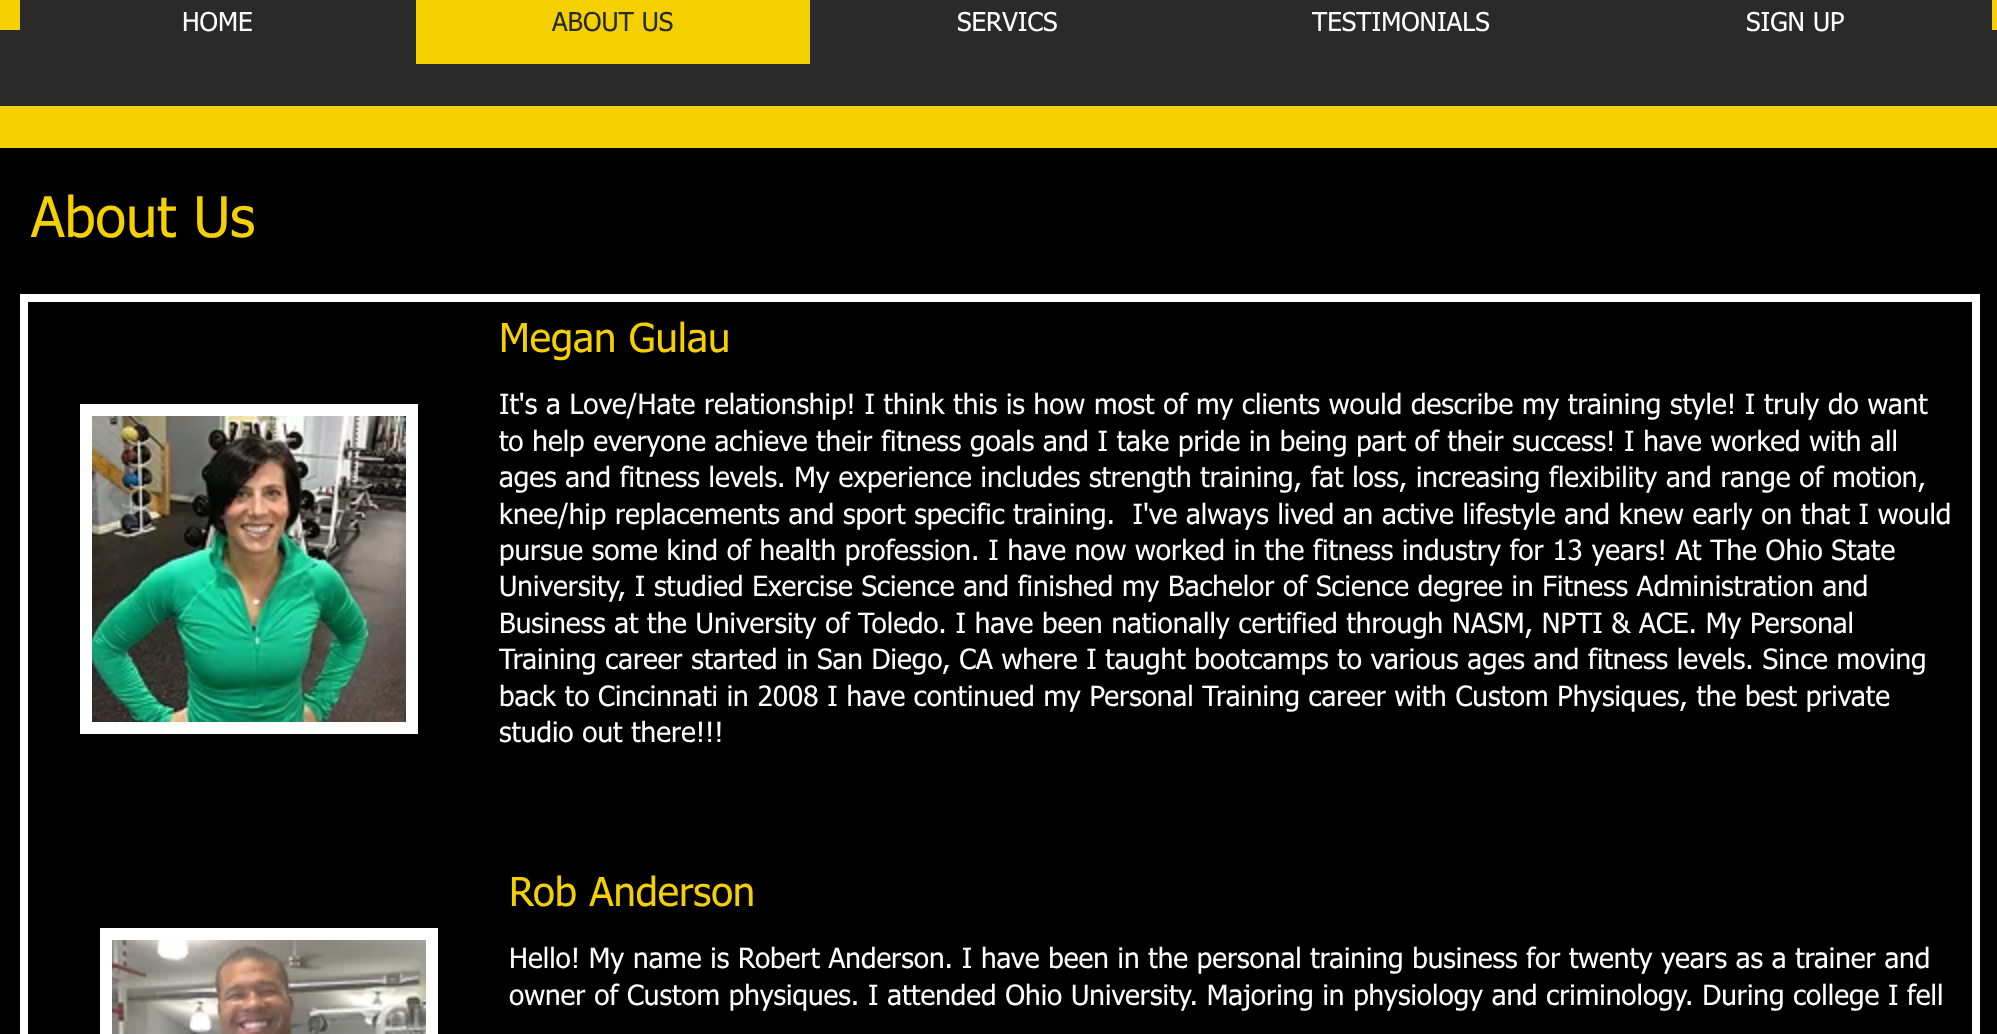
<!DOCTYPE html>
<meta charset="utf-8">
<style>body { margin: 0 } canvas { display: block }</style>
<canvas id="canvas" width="1997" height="1034"></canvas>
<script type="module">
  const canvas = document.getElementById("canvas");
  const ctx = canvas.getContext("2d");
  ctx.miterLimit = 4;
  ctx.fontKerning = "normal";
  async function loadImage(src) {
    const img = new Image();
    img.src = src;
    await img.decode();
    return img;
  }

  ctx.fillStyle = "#000000";
  ctx.fillRect(0, 0, 1997, 1034);
  ctx.fillStyle = "#f4d000";
  ctx.fillRect(0, 0, 1997, 148);
  ctx.fillStyle = "#2a2a2a";
  ctx.fillRect(20, 0, 1972, 30);
  ctx.fillRect(0, 30, 1997, 76);
  ctx.font = "26px tahoma";
  ctx.fillStyle = "#ffffff";
  ctx.fillText("HOME", 182, 31);
  ctx.fillStyle = "#f4d000";
  ctx.fillRect(416, 0, 394, 64);
  ctx.fillStyle = "#2a2a2a";
  ctx.fillText("ABOUT US", 552, 31);
  ctx.fillStyle = "#ffffff";
  ctx.fillText("SERVICS", 957, 31);
  ctx.fillText("TESTIMONIALS", 1312, 31);
  ctx.fillText("SIGN UP", 1746, 31);
  ctx.font = "56px tahoma";
  ctx.fillStyle = "#f4d000";
  ctx.fillText("About Us", 31, 237);
  ctx.strokeStyle = "#ffffff";
  ctx.lineWidth = 8;
  ctx.strokeRect(24, 298, 1952, 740);
  ctx.fillStyle = "#ffffff";
  ctx.fillRect(80, 404, 338, 330);
  ctx.drawImage(await loadImage("img1.png"), 92, 416, 314, 306);
  ctx.font = "40px tahoma";
  ctx.fillStyle = "#f4d000";
  ctx.fillText("Megan Gulau", 499, 352);
  ctx.font = "28px tahoma";
  ctx.fillStyle = "#ffffff";
  ctx.fillText("It's a Love/Hate relationship! I think this is how most of my clients would describe my training style! I truly do want", 499, 414);
  ctx.fillText("to help everyone achieve their fitness goals and I take pride in being part of their success! I have worked with all", 499, 451);
  ctx.fillText("ages and fitness levels. My experience includes strength training, fat loss, increasing flexibility and range of motion,", 499, 487);
  ctx.fillText("knee/hip replacements and sport specific training.  I've always lived an active lifestyle and knew early on that I would", 499, 524);
  ctx.fillText("pursue some kind of health profession. I have now worked in the fitness industry for 13 years! At The Ohio State", 499, 560);
  ctx.fillText("University, I studied Exercise Science and finished my Bachelor of Science degree in Fitness Administration and", 499, 596);
  ctx.fillText("Business at the University of Toledo. I have been nationally certified through NASM, NPTI & ACE. My Personal", 499, 633);
  ctx.fillText("Training career started in San Diego, CA where I taught bootcamps to various ages and fitness levels. Since moving", 499, 669);
  ctx.fillText("back to Cincinnati in 2008 I have continued my Personal Training career with Custom Physiques, the best private", 499, 706);
  ctx.fillText("studio out there!!!", 499, 742);
  ctx.fillRect(100, 928, 338, 106);
  ctx.drawImage(await loadImage("img2.png"), 112, 940, 314, 94);
  ctx.font = "40px tahoma";
  ctx.fillStyle = "#f4d000";
  ctx.fillText("Rob Anderson", 509, 906);
  ctx.font = "28px tahoma";
  ctx.fillStyle = "#ffffff";
  ctx.fillText("Hello! My name is Robert Anderson. I have been in the personal training business for twenty years as a trainer and", 509, 968);
  ctx.fillText("owner of Custom physiques. I attended Ohio University. Majoring in physiology and criminology. During college I fell", 509, 1005);
</script>
